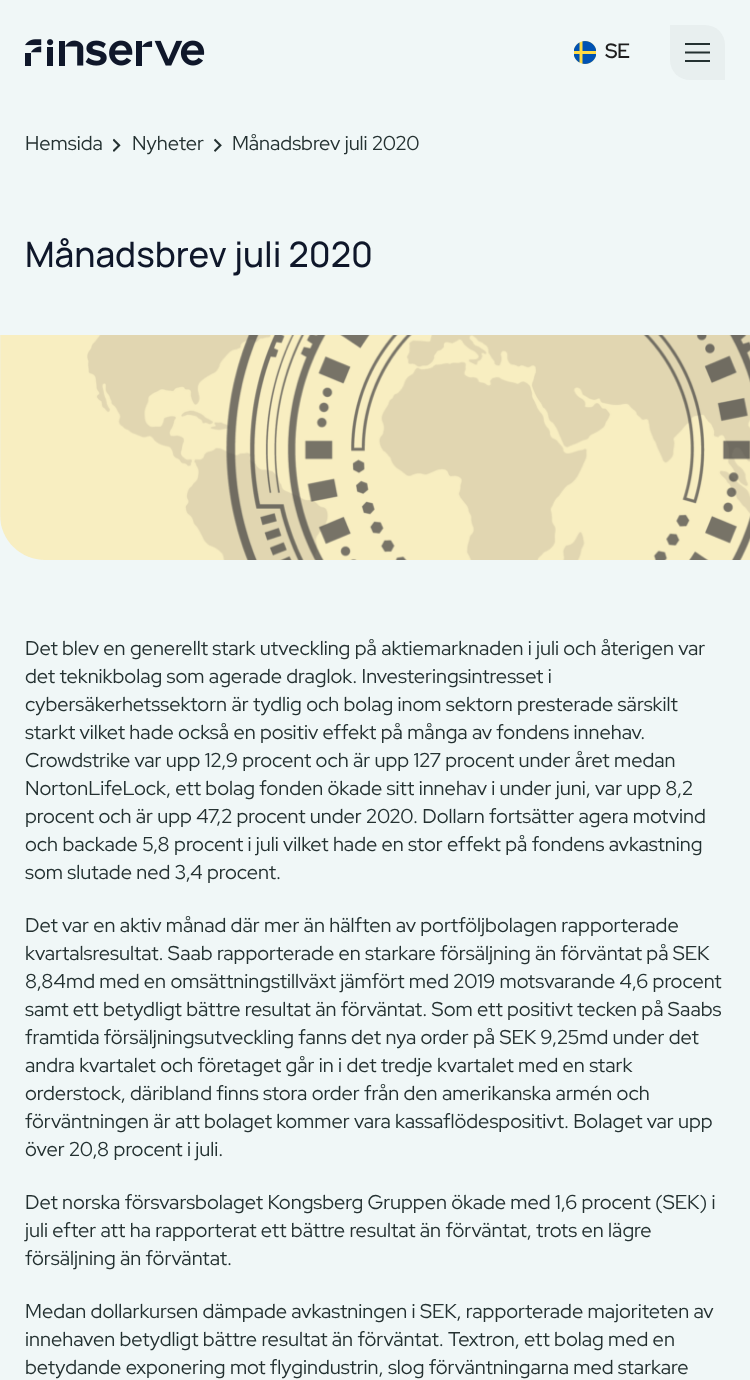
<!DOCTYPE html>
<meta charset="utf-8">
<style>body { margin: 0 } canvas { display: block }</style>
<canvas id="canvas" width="750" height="1380"></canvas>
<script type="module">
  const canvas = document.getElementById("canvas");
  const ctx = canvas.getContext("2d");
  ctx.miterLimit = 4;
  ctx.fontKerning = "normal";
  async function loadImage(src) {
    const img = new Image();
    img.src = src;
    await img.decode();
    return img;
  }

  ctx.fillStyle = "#f0f7f7";
  ctx.fillRect(0, 0, 750, 1380);
  ctx.drawImage(await loadImage("img1.png"), 25, 39, 180, 27);
  ctx.drawImage(await loadImage("img2.png"), 574, 41, 22, 23);
  ctx.font = "bold 20px Red Hat Display";
  ctx.fillStyle = "#1e1e1e";
  ctx.fillText("SE", 605, 58);
  ctx.fillStyle = "#e8efef";
  ctx.beginPath();
  ctx.roundRect(670, 25, 55, 55, [0, 20, 0, 20]);
  ctx.fill();
  ctx.beginPath();
  ctx.moveTo(685, 44);
  ctx.lineTo(710, 44);
  ctx.moveTo(685, 52.5);
  ctx.lineTo(710, 52.5);
  ctx.moveTo(685, 61);
  ctx.lineTo(710, 61);
  ctx.strokeStyle = "#243131";
  ctx.lineWidth = 1.9;
  ctx.stroke();
  ctx.font = "20px Red Hat Display";
  ctx.fillStyle = "#243131";
  ctx.fillText("Hemsida", 25, 150);
  ctx.drawImage(await loadImage("img3.png"), 113, 138, 8, 14);
  ctx.fillText("Nyheter", 132, 150);
  ctx.drawImage(await loadImage("img4.png"), 214, 138, 8, 14);
  ctx.fillText("Månadsbrev juli 2020", 232, 150);
  ctx.font = "500 35px Manrope";
  ctx.fillStyle = "#0f172a";
  ctx.fillText("Månadsbrev juli 2020", 25, 267);
  ctx.drawImage(await loadImage("img5.png"), 0, 335, 750, 225);
  ctx.font = "20px Red Hat Display";
  ctx.fillStyle = "#243131";
  ctx.fillText("Det blev en generellt stark utveckling på aktiemarknaden i juli och återigen var", 25, 655);
  ctx.fillText("det teknikbolag som agerade draglok. Investeringsintresset i", 25, 683);
  ctx.fillText("cybersäkerhetssektorn är tydlig och bolag inom sektorn presterade särskilt", 25, 711);
  ctx.fillText("starkt vilket hade också en positiv effekt på många av fondens innehav.", 25, 739);
  ctx.fillText("Crowdstrike var upp 12,9 procent och är upp 127 procent under året medan", 25, 767);
  ctx.fillText("NortonLifeLock, ett bolag fonden ökade sitt innehav i under juni, var upp 8,2", 25, 795);
  ctx.fillText("procent och är upp 47,2 procent under 2020. Dollarn fortsätter agera motvind", 25, 823);
  ctx.fillText("och backade 5,8 procent i juli vilket hade en stor effekt på fondens avkastning", 25, 851);
  ctx.fillText("som slutade ned 3,4 procent.", 25, 879);
  ctx.fillText("Det var en aktiv månad där mer än hälften av portföljbolagen rapporterade", 25, 932);
  ctx.fillText("kvartalsresultat. Saab rapporterade en starkare försäljning än förväntat på SEK", 25, 960);
  ctx.fillText("8,84md med en omsättningstillväxt jämfört med 2019 motsvarande 4,6 procent", 25, 988);
  ctx.fillText("samt ett betydligt bättre resultat än förväntat. Som ett positivt tecken på Saabs", 25, 1016);
  ctx.fillText("framtida försäljningsutveckling fanns det nya order på SEK 9,25md under det", 25, 1044);
  ctx.fillText("andra kvartalet och företaget går in i det tredje kvartalet med en stark", 25, 1072);
  ctx.fillText("orderstock, däribland finns stora order från den amerikanska armén och", 25, 1100);
  ctx.fillText("förväntningen är att bolaget kommer vara kassaflödespositivt. Bolaget var upp", 25, 1128);
  ctx.fillText("över 20,8 procent i juli.", 25, 1156);
  ctx.fillText("Det norska försvarsbolaget Kongsberg Gruppen ökade med 1,6 procent (SEK) i", 25, 1209);
  ctx.fillText("juli efter att ha rapporterat ett bättre resultat än förväntat, trots en lägre", 25, 1237);
  ctx.fillText("försäljning än förväntat.", 25, 1265);
  ctx.fillText("Medan dollarkursen dämpade avkastningen i SEK, rapporterade majoriteten av", 25, 1318);
  ctx.fillText("innehaven betydligt bättre resultat än förväntat. Textron, ett bolag med en", 25, 1346);
  ctx.fillText("betydande exponering mot flygindustrin, slog förväntningarna med starkare", 25, 1374);
</script>
